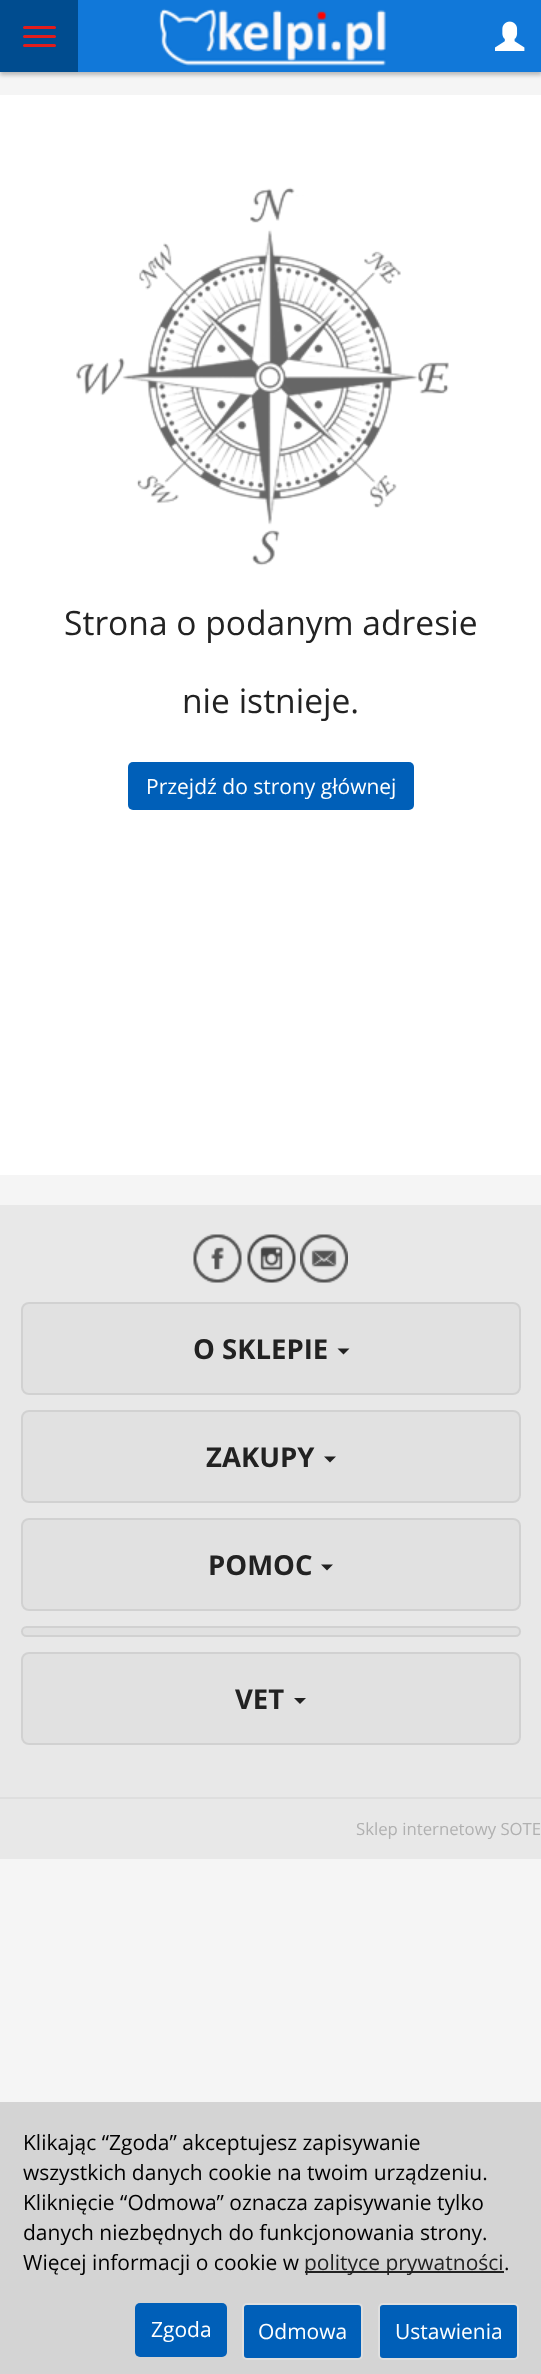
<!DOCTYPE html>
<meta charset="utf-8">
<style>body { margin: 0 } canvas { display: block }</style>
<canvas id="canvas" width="541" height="2374"></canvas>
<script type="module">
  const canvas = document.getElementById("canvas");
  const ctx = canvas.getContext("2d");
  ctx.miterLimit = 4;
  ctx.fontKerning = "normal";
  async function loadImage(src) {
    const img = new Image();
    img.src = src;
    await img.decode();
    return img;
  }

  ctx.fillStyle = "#f5f5f5";
  ctx.fillRect(0, 0, 541, 2374);
  ctx.fillStyle = "rgba(0, 0, 0, 0.25)";
  ctx.filter = "blur(2px)";
  ctx.beginPath();
  ctx.rect(0, 3, 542, 72);
  ctx.fill();
  ctx.filter = "none";
  ctx.fillStyle = "#1178d9";
  ctx.fillRect(78, 0, 463, 72);
  ctx.fillStyle = "#004c8f";
  ctx.fillRect(0, 0, 78, 72);
  ctx.fillStyle = "#e21d1c";
  ctx.beginPath();
  ctx.roundRect(23, 26, 33, 3, 1.5);
  ctx.fill();
  ctx.beginPath();
  ctx.roundRect(23, 35, 33, 3, 1.5);
  ctx.fill();
  ctx.beginPath();
  ctx.roundRect(23, 44, 33, 3, 1.5);
  ctx.fill();
  ctx.drawImage(await loadImage("img1.png"), 158, 8, 228, 58);
  ctx.drawImage(await loadImage("img2.png"), 495, 21, 30, 30);
  ctx.fillStyle = "#ffffff";
  ctx.fillRect(0, 95, 541, 1080);
  ctx.drawImage(await loadImage("img3.png"), 76, 187, 373, 379);
  ctx.font = "33.6px Open Sans";
  ctx.fillStyle = "#222222";
  ctx.fillText("Strona o podanym adresie", 64, 635);
  ctx.fillText("nie istnieje.", 182, 713);
  ctx.fillStyle = "#005fb8";
  ctx.beginPath();
  ctx.roundRect(128, 762, 286, 48, 5);
  ctx.fill();
  ctx.font = "21px Open Sans";
  ctx.fillStyle = "#ffffff";
  ctx.fillText("Przejdź do strony głównej", 146, 794);
  ctx.fillStyle = "#e8e8e8";
  ctx.fillRect(0, 1205, 541, 654);
  ctx.drawImage(await loadImage("img4.png"), 193, 1234, 49, 49);
  ctx.drawImage(await loadImage("img5.png"), 247, 1234, 49, 49);
  ctx.drawImage(await loadImage("img6.png"), 300, 1234, 48, 49);
  ctx.fillStyle = "#e1e1e1";
  ctx.beginPath();
  ctx.roundRect(21, 1302, 500, 93, 8);
  ctx.fill();
  ctx.beginPath();
  ctx.roundRect(22, 1303, 498, 91, 7);
  ctx.strokeStyle = "rgba(0, 0, 0, 0.07)";
  ctx.lineWidth = 2;
  ctx.stroke();
  ctx.font = "bold 27.5px Open Sans";
  ctx.fillStyle = "#222222";
  ctx.fillText("O SKLEPIE", 193, 1359);
  ctx.beginPath();
  ctx.moveTo(337.5, 1348.5);
  ctx.lineTo(349.5, 1348.5);
  ctx.lineTo(343.5, 1354.5);
  ctx.closePath();
  ctx.fill();
  ctx.fillStyle = "#e1e1e1";
  ctx.beginPath();
  ctx.roundRect(21, 1410, 500, 93, 8);
  ctx.fill();
  ctx.beginPath();
  ctx.roundRect(22, 1411, 498, 91, 7);
  ctx.stroke();
  ctx.fillStyle = "#222222";
  ctx.fillText("ZAKUPY", 206, 1467);
  ctx.beginPath();
  ctx.moveTo(324, 1456.5);
  ctx.lineTo(336, 1456.5);
  ctx.lineTo(330, 1462.5);
  ctx.closePath();
  ctx.fill();
  ctx.fillStyle = "#e1e1e1";
  ctx.beginPath();
  ctx.roundRect(21, 1518, 500, 93, 8);
  ctx.fill();
  ctx.beginPath();
  ctx.roundRect(22, 1519, 498, 91, 7);
  ctx.stroke();
  ctx.fillStyle = "#222222";
  ctx.fillText("POMOC", 208, 1575);
  ctx.beginPath();
  ctx.moveTo(321, 1564.5);
  ctx.lineTo(333, 1564.5);
  ctx.lineTo(327, 1570.5);
  ctx.closePath();
  ctx.fill();
  ctx.fillStyle = "#e1e1e1";
  ctx.beginPath();
  ctx.roundRect(21, 1626, 500, 11, 5.5);
  ctx.fill();
  ctx.beginPath();
  ctx.roundRect(22, 1627, 498, 9, 4.5);
  ctx.stroke();
  ctx.beginPath();
  ctx.roundRect(21, 1652, 500, 93, 8);
  ctx.fill();
  ctx.beginPath();
  ctx.roundRect(22, 1653, 498, 91, 7);
  ctx.stroke();
  ctx.fillStyle = "#222222";
  ctx.fillText("VET", 235, 1709);
  ctx.beginPath();
  ctx.moveTo(294, 1698);
  ctx.lineTo(306, 1698);
  ctx.lineTo(300, 1704);
  ctx.closePath();
  ctx.fill();
  ctx.fillStyle = "#dedede";
  ctx.fillRect(0, 1797, 541, 2);
  ctx.font = "16.75px Open Sans";
  ctx.fillStyle = "#b0b0b0";
  ctx.fillText("Sklep internetowy SOTE", 356, 1835);
  ctx.fillStyle = "#d4d4d4";
  ctx.fillRect(0, 2102, 541, 272);
  ctx.font = "21px Open Sans";
  ctx.fillStyle = "#000000";
  ctx.fillText("Klikając “Zgoda” akceptujesz zapisywanie", 23, 2150);
  ctx.fillText("wszystkich danych cookie na twoim urządzeniu.", 23, 2180);
  ctx.fillText("Kliknięcie “Odmowa” oznacza zapisywanie tylko", 23, 2210);
  ctx.fillText("danych niezbędnych do funkcjonowania strony.", 23, 2240);
  ctx.fillText("Więcej informacji o cookie w", 23, 2270);
  ctx.fillStyle = "#222222";
  ctx.fillRect(305, 2271, 199, 2);
  ctx.fillText("polityce prywatności", 304, 2270);
  ctx.fillStyle = "#000000";
  ctx.fillText(".", 504, 2270);
  ctx.fillStyle = "#005fb8";
  ctx.beginPath();
  ctx.roundRect(135, 2303, 92, 54, 5);
  ctx.fill();
  ctx.fillStyle = "#ffffff";
  ctx.fillText("Zgoda", 151, 2337);
  ctx.fillStyle = "#005fb8";
  ctx.beginPath();
  ctx.roundRect(243, 2304, 119, 55, 4);
  ctx.fill();
  ctx.strokeStyle = "#dfdfdf";
  ctx.stroke();
  ctx.fillStyle = "#ffffff";
  ctx.fillText("Odmowa", 258, 2339);
  ctx.fillStyle = "#005fb8";
  ctx.beginPath();
  ctx.roundRect(379, 2304, 139, 55, 4);
  ctx.fill();
  ctx.stroke();
  ctx.fillStyle = "#ffffff";
  ctx.fillText("Ustawienia", 395, 2339);
</script>
